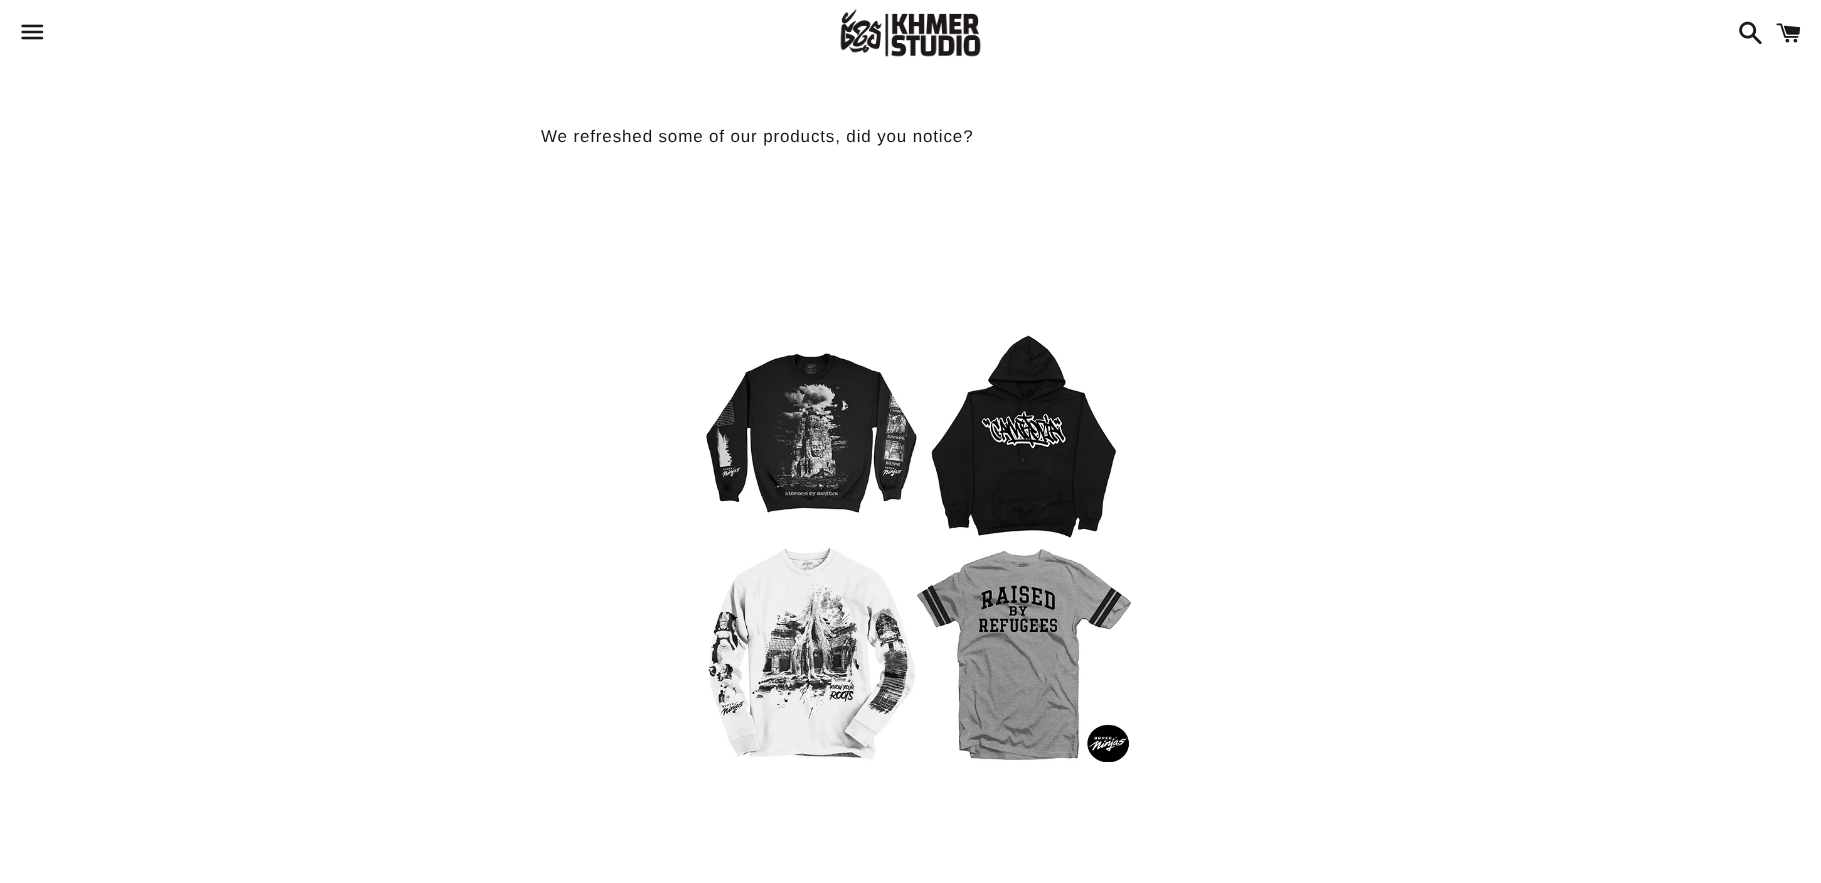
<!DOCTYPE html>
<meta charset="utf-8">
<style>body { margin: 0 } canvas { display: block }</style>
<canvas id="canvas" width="1821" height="883"></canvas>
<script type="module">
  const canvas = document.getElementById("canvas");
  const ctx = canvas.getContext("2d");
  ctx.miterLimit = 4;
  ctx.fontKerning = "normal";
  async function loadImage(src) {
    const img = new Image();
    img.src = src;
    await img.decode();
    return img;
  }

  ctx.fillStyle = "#ffffff";
  ctx.fillRect(0, 0, 1821, 883);
  ctx.drawImage(await loadImage("img1.png"), 21, 24, 23, 16);
  ctx.drawImage(await loadImage("img2.png"), 840, 9, 141, 48);
  ctx.drawImage(await loadImage("img3.png"), 1739, 21, 23, 24);
  ctx.drawImage(await loadImage("img4.png"), 1776, 23, 25, 20);
  ctx.letterSpacing = "0.85px";
  ctx.font = "17px Liberation Sans";
  ctx.fillStyle = "#1a1a1a";
  ctx.fillText("We refreshed some of our products, did you notice?", 541, 142);
  ctx.drawImage(await loadImage("img5.png"), 704, 335, 427, 427);
</script>
